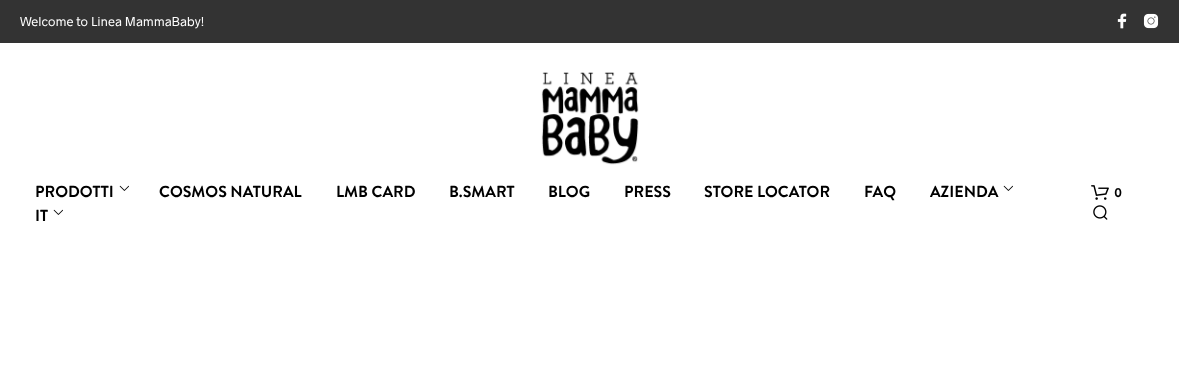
<!DOCTYPE html>
<meta charset="utf-8">
<style>body { margin: 0 } canvas { display: block }</style>
<canvas id="canvas" width="1179" height="380"></canvas>
<script type="module">
  const canvas = document.getElementById("canvas");
  const ctx = canvas.getContext("2d");
  ctx.miterLimit = 4;
  ctx.fontKerning = "normal";
  async function loadImage(src) {
    const img = new Image();
    img.src = src;
    await img.decode();
    return img;
  }

  ctx.fillStyle = "#ffffff";
  ctx.fillRect(0, 0, 1179, 380);
  ctx.fillStyle = "#333333";
  ctx.fillRect(0, 0, 1179, 43);
  ctx.font = "13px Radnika";
  ctx.fillStyle = "#ffffff";
  ctx.fillText("Welcome to Linea MammaBaby!", 20, 26);
  ctx.drawImage(await loadImage("img1.png"), 1117, 13, 10, 16);
  ctx.drawImage(await loadImage("img2.png"), 1143, 13, 16, 16);
  ctx.drawImage(await loadImage("img3.png"), 541, 72, 98, 93);
  ctx.font = "bold 16px Brandon Grotesque";
  ctx.fillStyle = "#000000";
  ctx.fillText("PRODOTTI", 35, 197);
  ctx.drawImage(await loadImage("img4.png"), 119, 185, 10, 6);
  ctx.fillText("COSMOS NATURAL", 159, 197);
  ctx.fillText("LMB CARD", 336, 197);
  ctx.fillText("B.SMART", 449, 197);
  ctx.fillText("BLOG", 548, 197);
  ctx.fillText("PRESS", 624, 197);
  ctx.fillText("STORE LOCATOR", 704, 197);
  ctx.fillText("FAQ", 864, 197);
  ctx.fillText("AZIENDA", 930, 197);
  ctx.drawImage(await loadImage("img4.png"), 1003, 185, 10, 6);
  ctx.fillText("IT", 35, 221);
  ctx.drawImage(await loadImage("img4.png"), 53, 209, 10, 6);
  ctx.drawImage(await loadImage("img5.png"), 1091, 185, 18, 15);
  ctx.font = "bold 13px Brandon Grotesque";
  ctx.fillText("0", 1114, 197);
  ctx.drawImage(await loadImage("img6.png"), 1093, 205, 15, 15);
</script>
